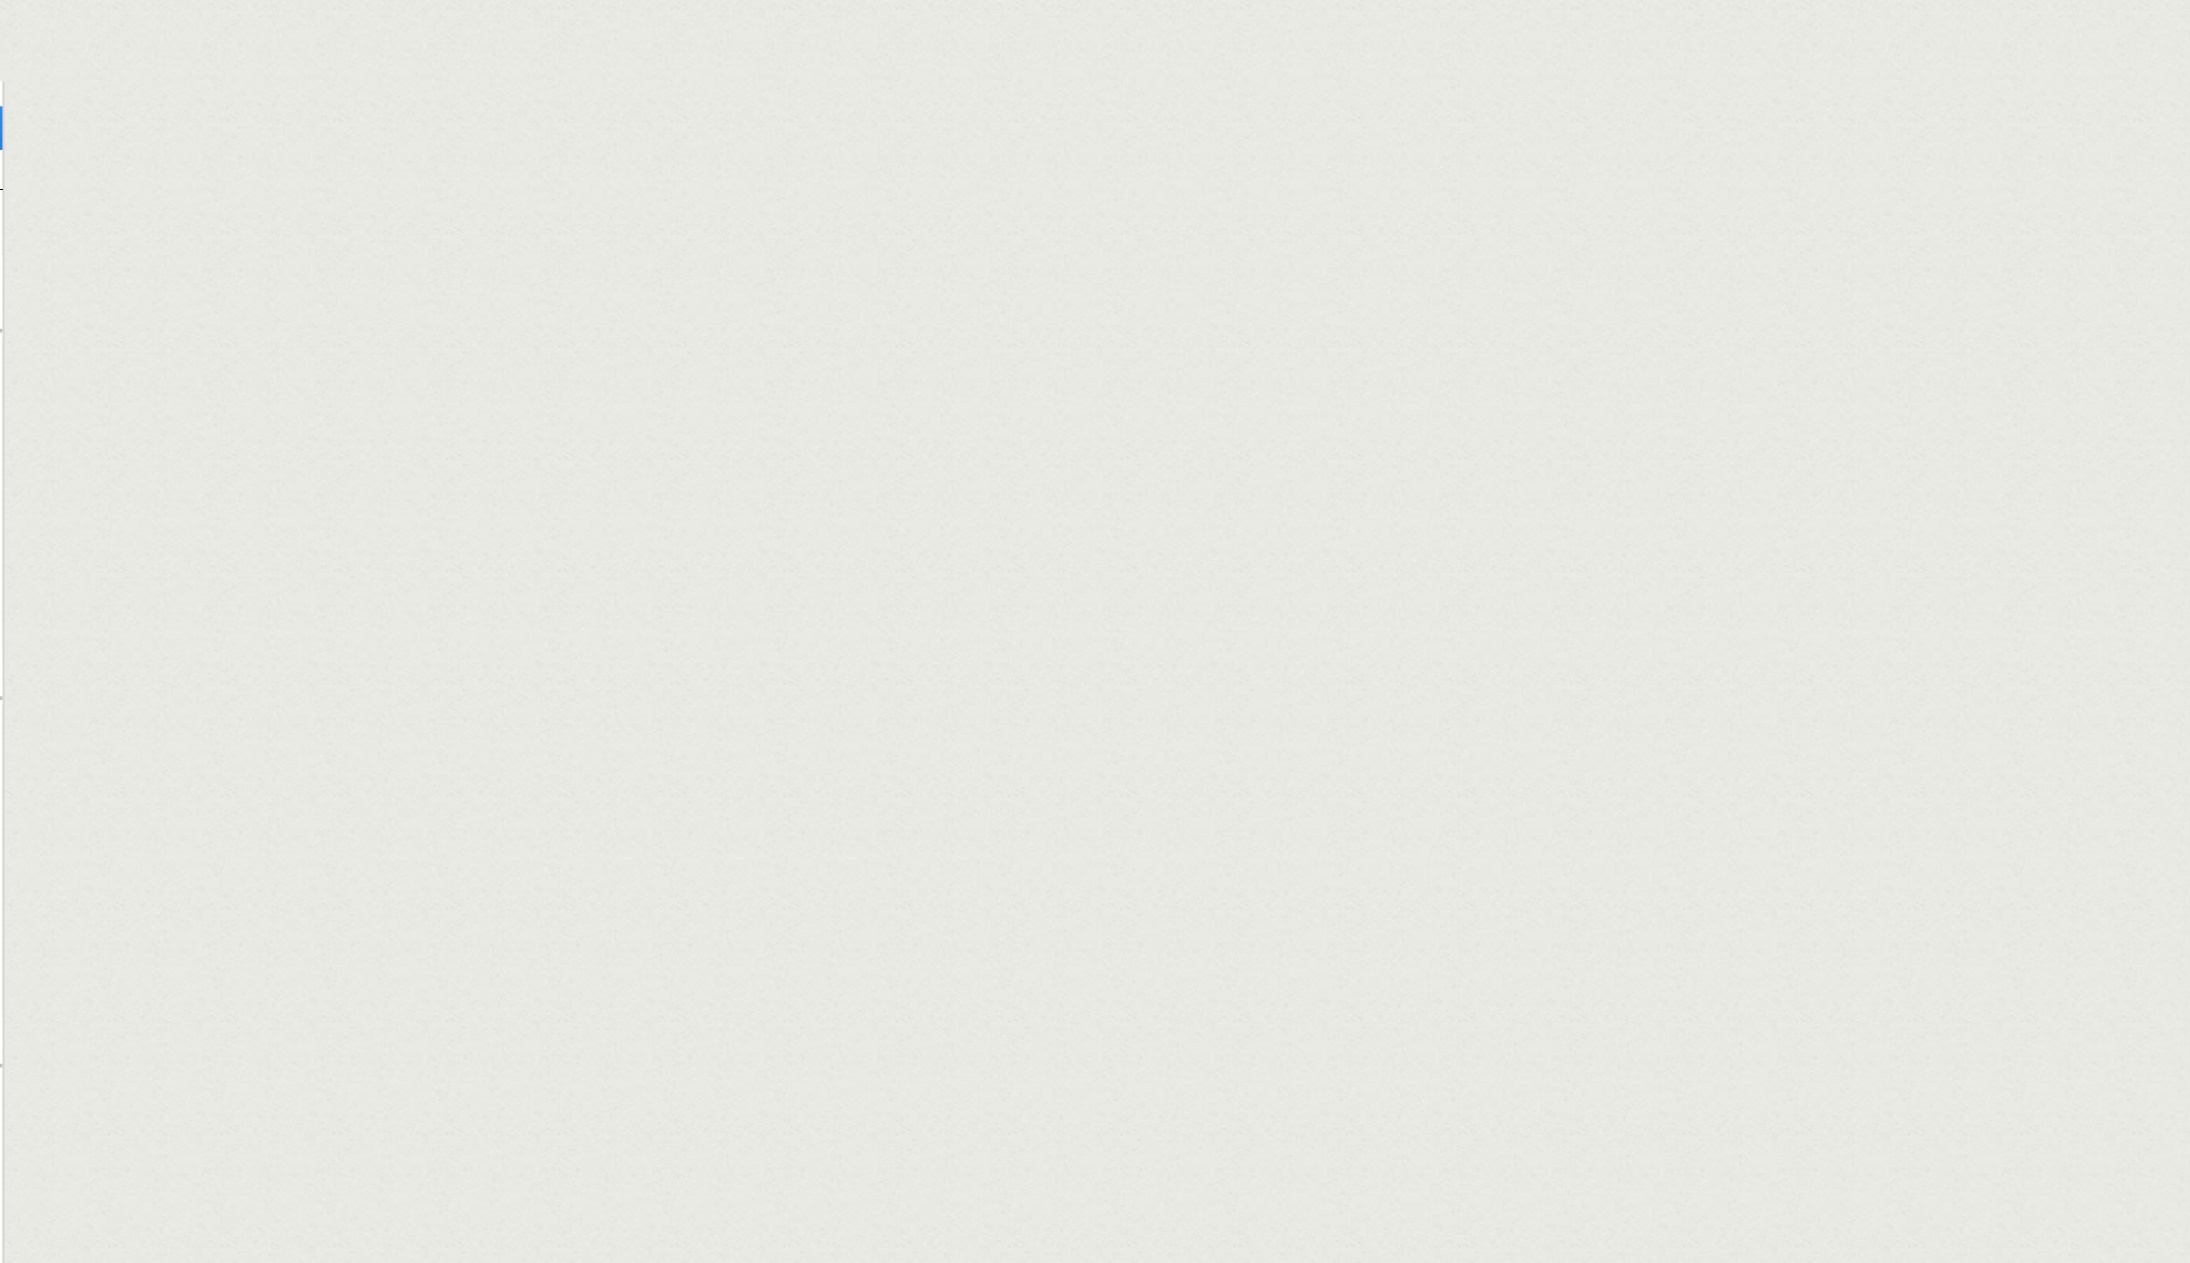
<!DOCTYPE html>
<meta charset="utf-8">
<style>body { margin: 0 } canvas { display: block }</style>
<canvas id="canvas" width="2190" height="1263"></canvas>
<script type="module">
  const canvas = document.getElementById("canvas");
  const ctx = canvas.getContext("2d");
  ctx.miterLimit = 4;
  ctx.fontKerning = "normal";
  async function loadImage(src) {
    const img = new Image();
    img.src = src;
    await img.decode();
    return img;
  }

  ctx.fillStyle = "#ffffff";
  ctx.fillRect(0, 0, 2190, 1263);
  ctx.drawImage(await loadImage("img1.png"), 0, 0, 2190, 1263);
  ctx.fillRect(0, 81, 5, 1182);
  ctx.drawImage(await loadImage("img2.png"), 1, 81, 4, 1182);
  ctx.drawImage(await loadImage("img3.png"), 0, 106, 3, 44);
  ctx.fillStyle = "#000000";
  ctx.fillRect(0, 189, 3, 1);
  ctx.drawImage(await loadImage("img4.png"), 1, 255, 2, 27);
  ctx.drawImage(await loadImage("img5.png"), 0, 283, 3, 54);
  ctx.drawImage(await loadImage("img6.png"), 0, 650, 3, 55);
  ctx.drawImage(await loadImage("img5.png"), 0, 1018, 3, 54);
</script>
